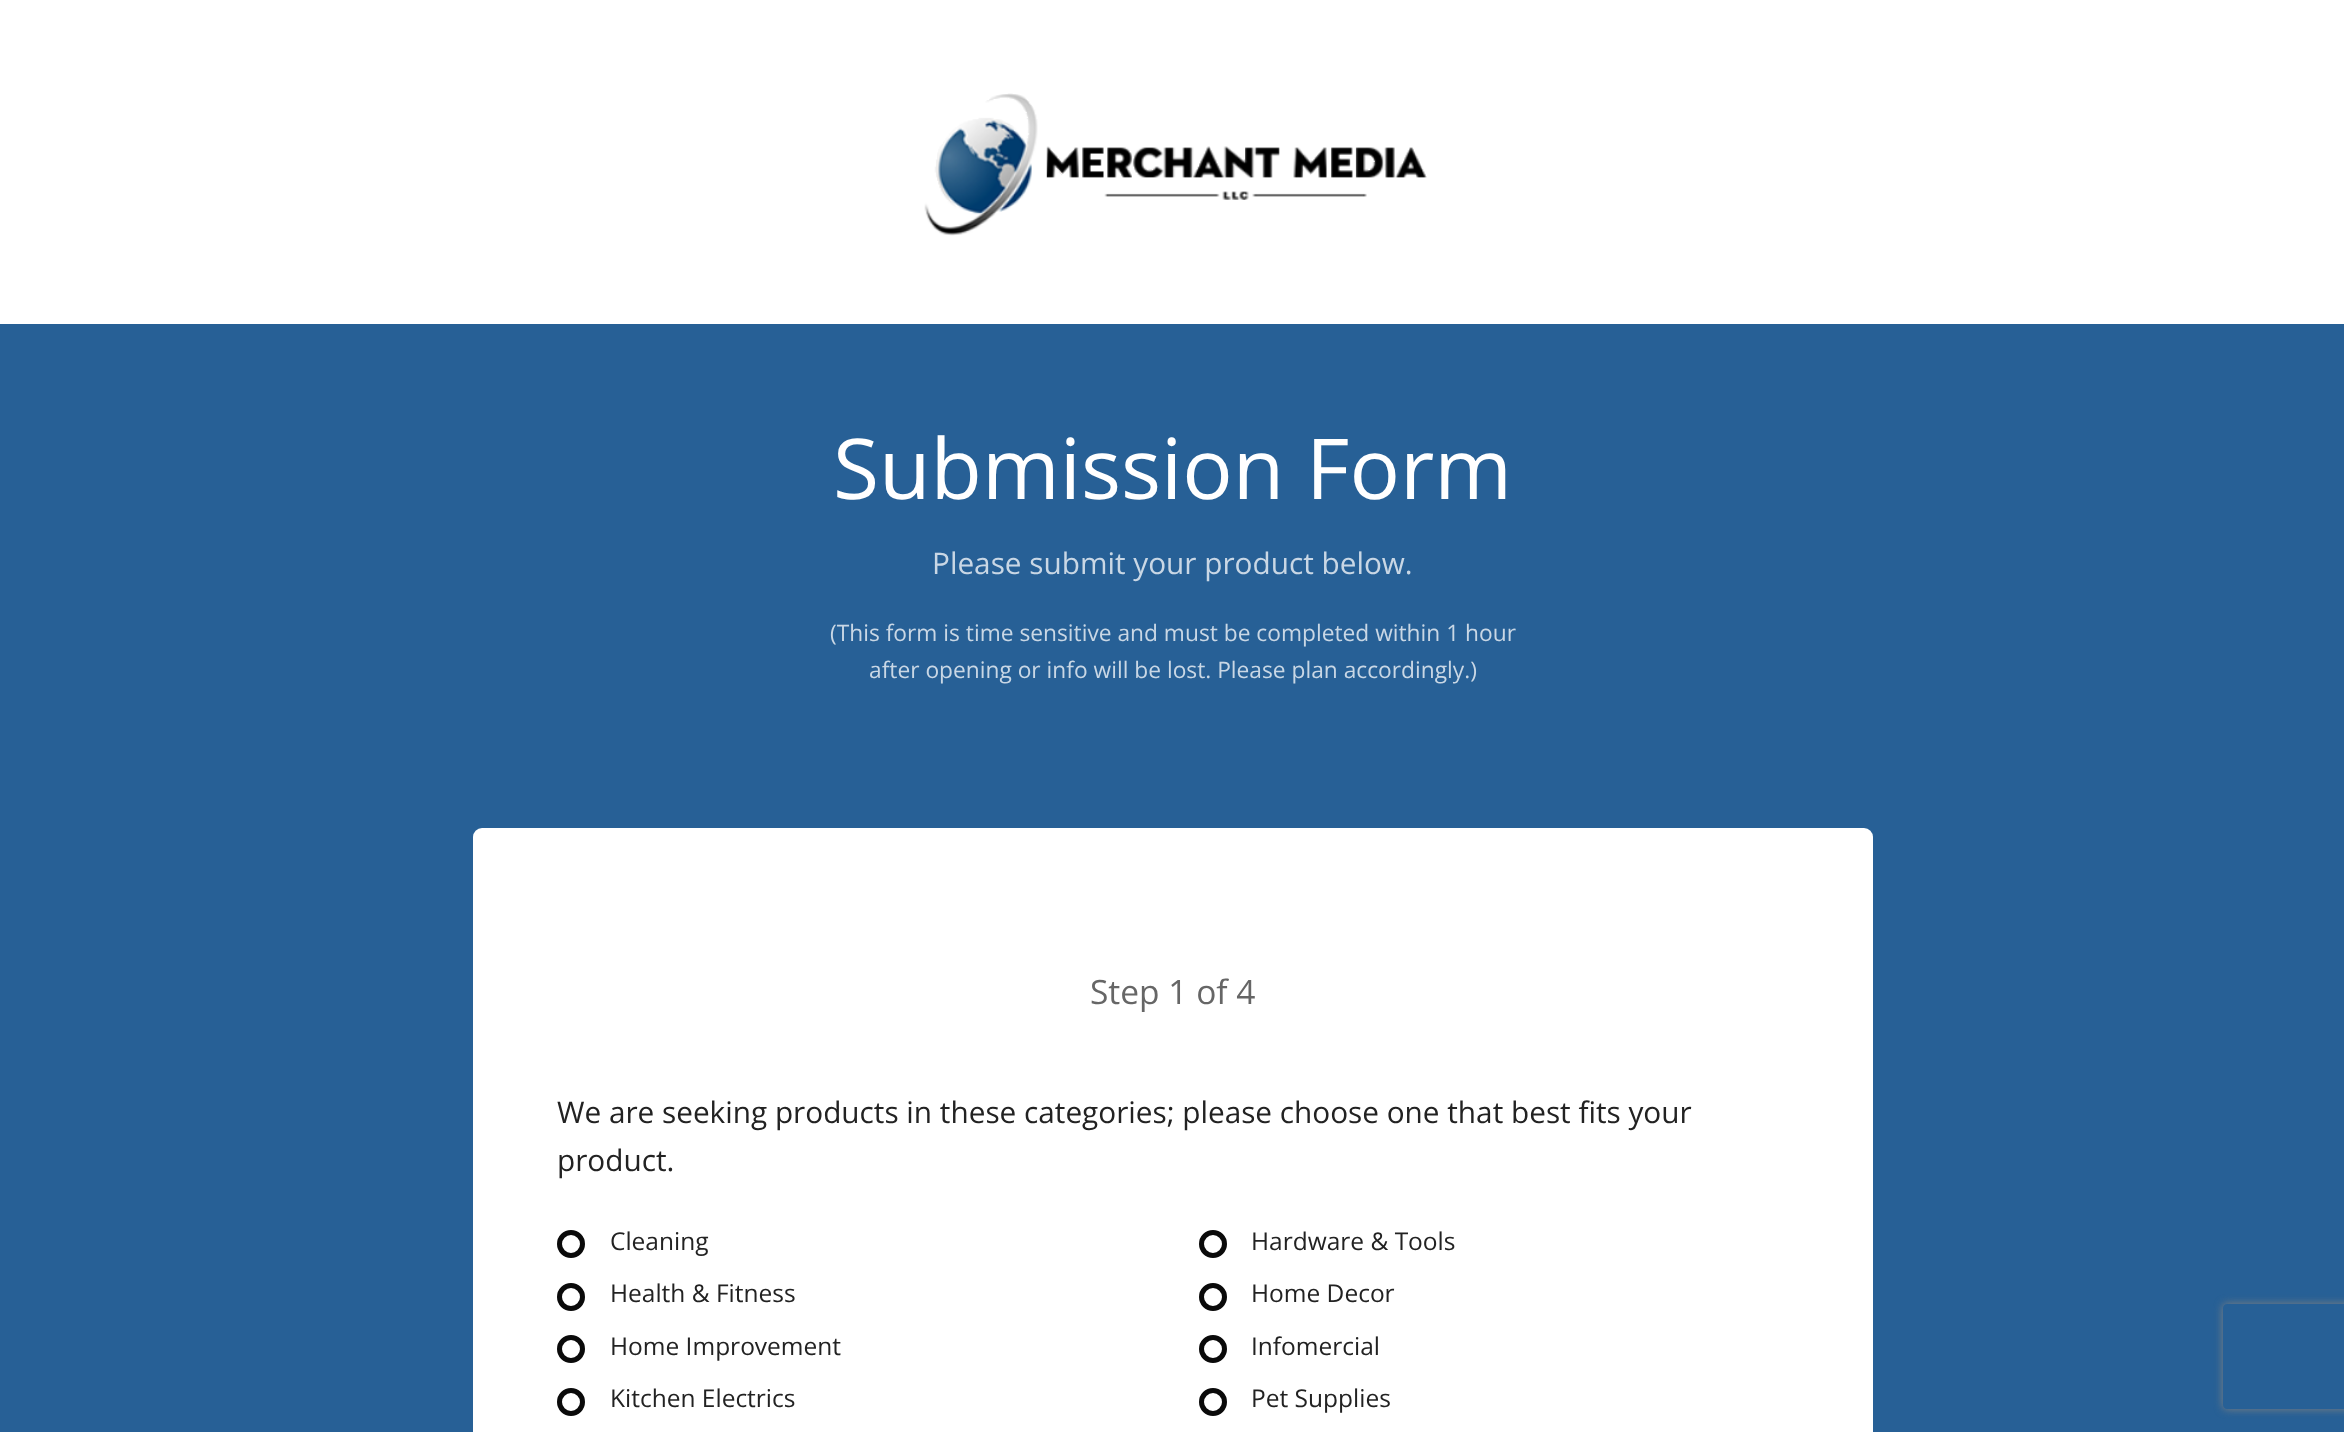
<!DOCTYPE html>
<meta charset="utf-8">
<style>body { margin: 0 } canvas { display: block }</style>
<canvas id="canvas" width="2344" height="1432"></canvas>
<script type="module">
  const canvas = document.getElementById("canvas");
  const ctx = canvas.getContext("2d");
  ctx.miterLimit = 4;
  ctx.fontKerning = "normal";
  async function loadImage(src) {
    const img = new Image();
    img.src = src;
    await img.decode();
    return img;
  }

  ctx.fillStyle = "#ffffff";
  ctx.fillRect(0, 0, 2344, 1432);
  ctx.drawImage(await loadImage("img1.png"), 924, 93, 503, 143);
  ctx.fillStyle = "#276096";
  ctx.fillRect(0, 324, 2344, 1108);
  ctx.font = "84px Open Sans";
  ctx.fillStyle = "#ffffff";
  ctx.fillText("Submission Form", 833, 499);
  ctx.font = "29.75px Open Sans";
  ctx.fillStyle = "#c9d7e5";
  ctx.fillText("Please submit your product below.", 932, 574);
  ctx.font = "22.75px Open Sans";
  ctx.fillText("(This form is time sensitive and must be completed within 1 hour", 830, 641);
  ctx.fillText("after opening or info will be lost. Please plan accordingly.)", 869, 678);
  ctx.fillStyle = "#ffffff";
  ctx.beginPath();
  ctx.roundRect(473, 828, 1400, 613, 9);
  ctx.fill();
  ctx.font = "33.5px Open Sans";
  ctx.fillStyle = "#666666";
  ctx.fillText("Step 1 of 4", 1090, 1004);
  ctx.font = "29.75px Open Sans";
  ctx.fillStyle = "#222222";
  ctx.fillText("We are seeking products in these categories; please choose one that best fits your", 557, 1123);
  ctx.fillText("product.", 557, 1171);
  ctx.beginPath();
  ctx.arc(571, 1244, 11.5, 0, Math.PI * 2);
  ctx.strokeStyle = "#0a0a0a";
  ctx.lineWidth = 5;
  ctx.stroke();
  ctx.font = "24.5px Open Sans";
  ctx.fillText("Cleaning", 610, 1250);
  ctx.beginPath();
  ctx.arc(1213, 1244, 11.5, 0, Math.PI * 2);
  ctx.stroke();
  ctx.fillText("Hardware & Tools", 1251, 1250);
  ctx.beginPath();
  ctx.arc(571, 1297, 11.5, 0, Math.PI * 2);
  ctx.stroke();
  ctx.fillText("Health & Fitness", 610, 1302);
  ctx.beginPath();
  ctx.arc(1213, 1297, 11.5, 0, Math.PI * 2);
  ctx.stroke();
  ctx.fillText("Home Decor", 1251, 1302);
  ctx.beginPath();
  ctx.arc(571, 1349, 11.5, 0, Math.PI * 2);
  ctx.stroke();
  ctx.fillText("Home Improvement", 610, 1355);
  ctx.beginPath();
  ctx.arc(1213, 1349, 11.5, 0, Math.PI * 2);
  ctx.stroke();
  ctx.fillText("Infomercial", 1251, 1355);
  ctx.beginPath();
  ctx.arc(571, 1402, 11.5, 0, Math.PI * 2);
  ctx.stroke();
  ctx.fillText("Kitchen Electrics", 610, 1407);
  ctx.beginPath();
  ctx.arc(1213, 1402, 11.5, 0, Math.PI * 2);
  ctx.stroke();
  ctx.fillText("Pet Supplies", 1251, 1407);
  ctx.save();
  ctx.beginPath();
  ctx.moveTo(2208, 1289);
  ctx.lineTo(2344, 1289);
  ctx.lineTo(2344, 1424);
  ctx.lineTo(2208, 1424);
  ctx.closePath();
  ctx.moveTo(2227, 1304);
  ctx.lineTo(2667, 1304);
  ctx.bezierCurveTo(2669, 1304, 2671, 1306, 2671, 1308);
  ctx.lineTo(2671, 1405);
  ctx.bezierCurveTo(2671, 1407, 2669, 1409, 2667, 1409);
  ctx.lineTo(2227, 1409);
  ctx.bezierCurveTo(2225, 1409, 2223, 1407, 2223, 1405);
  ctx.lineTo(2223, 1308);
  ctx.bezierCurveTo(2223, 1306, 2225, 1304, 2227, 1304);
  ctx.closePath();
  ctx.clip("evenodd");
  ctx.fillStyle = "#808080";
  ctx.filter = "blur(4.5px)";
  ctx.beginPath();
  ctx.roundRect(2223, 1304, 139, 105, 4);
  ctx.fill();
  ctx.filter = "none";
  ctx.restore();
</script>
